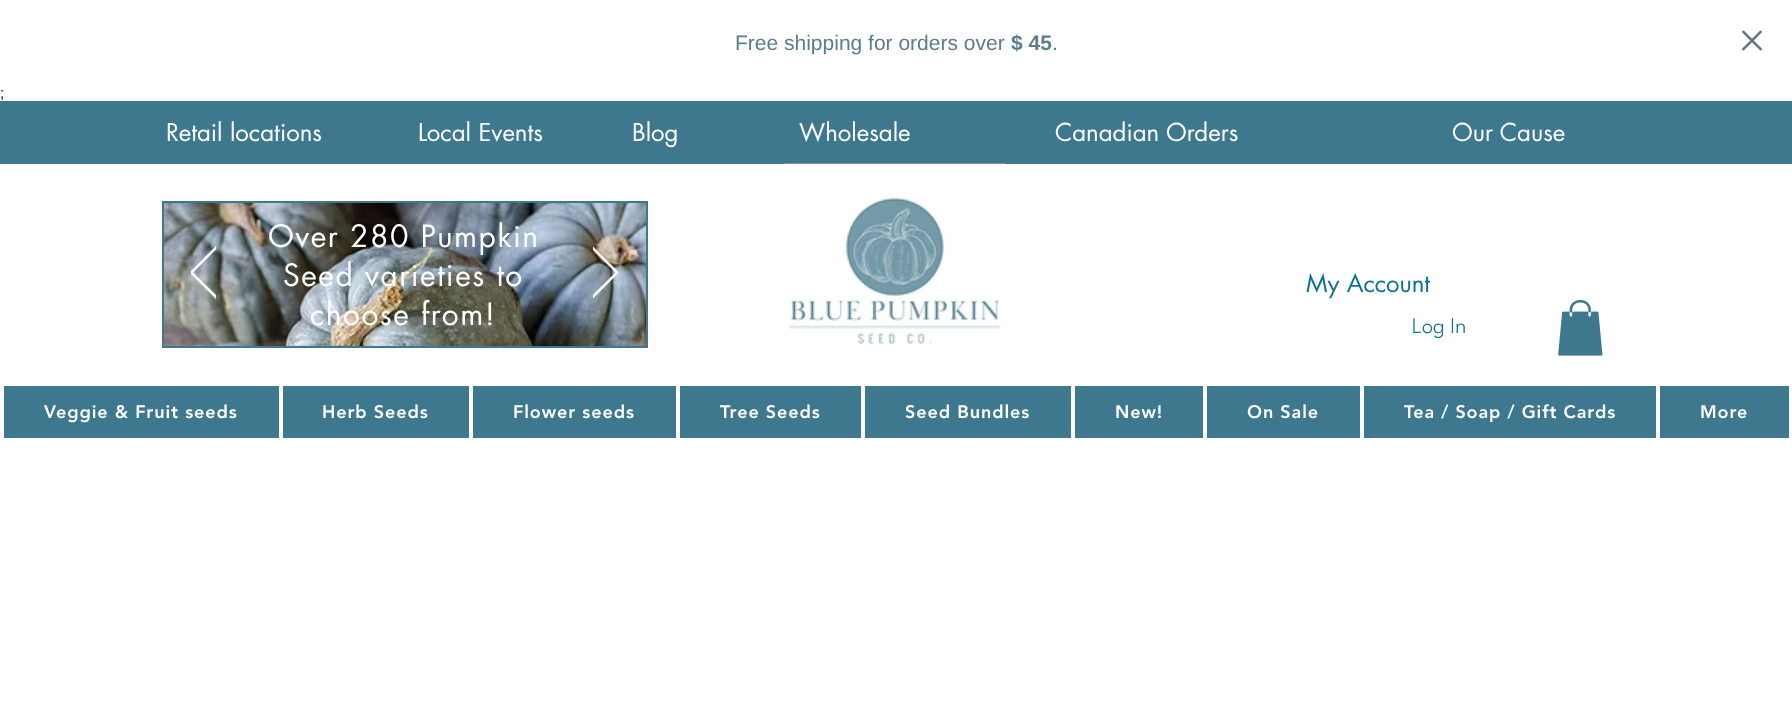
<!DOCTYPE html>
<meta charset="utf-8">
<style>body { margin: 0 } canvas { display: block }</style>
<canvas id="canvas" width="1792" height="702"></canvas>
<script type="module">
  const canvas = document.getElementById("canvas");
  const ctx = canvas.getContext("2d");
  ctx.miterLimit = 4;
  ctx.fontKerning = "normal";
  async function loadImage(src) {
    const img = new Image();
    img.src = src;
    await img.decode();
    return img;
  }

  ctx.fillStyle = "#ffffff";
  ctx.fillRect(0, 0, 1792, 702);
  ctx.font = "21px Liberation Sans";
  ctx.fillStyle = "#5a7e8b";
  ctx.fillText("Free shipping for orders over", 735, 50);
  ctx.font = "bold 21px Liberation Sans";
  ctx.fillText("$ 45", 1011, 50);
  ctx.font = "21px Liberation Sans";
  ctx.fillText(".", 1052, 50);
  ctx.drawImage(await loadImage("img1.png"), 1742, 30, 20, 21);
  ctx.font = "15px Liberation Sans";
  ctx.fillStyle = "#000000";
  ctx.fillText(";", 0, 98);
  ctx.fillStyle = "#3e788e";
  ctx.fillRect(0, 101, 1792, 63);
  ctx.font = "24px futura";
  ctx.fillStyle = "#ffffff";
  ctx.fillText("Retail locations", 166, 141);
  ctx.fillText("Local Events", 418, 141);
  ctx.fillText("Blog", 632, 141);
  ctx.fillText("Wholesale", 799, 141);
  ctx.fillText("Canadian Orders", 1055, 141);
  ctx.fillText("Our Cause", 1452, 141);
  ctx.drawImage(await loadImage("img2.png"), 784, 163, 221, 181);
  ctx.drawImage(await loadImage("img3.png"), 164, 203, 482, 143);
  ctx.strokeStyle = "#3e788e";
  ctx.lineWidth = 2;
  ctx.strokeRect(163, 202, 484, 145);
  ctx.save();
  ctx.beginPath();
  ctx.rect(191, 246, 25, 53);
  ctx.clip();
  ctx.beginPath();
  ctx.moveTo(216.5, 298.5);
  ctx.lineTo(190.5, 272.5);
  ctx.lineTo(216.5, 246.5);
  ctx.lineTo(217.5, 247);
  ctx.lineTo(192, 272.5);
  ctx.lineTo(217.5, 297.5);
  ctx.closePath();
  ctx.strokeStyle = "#ffffff";
  ctx.lineWidth = 1.3;
  ctx.stroke();
  ctx.restore();
  ctx.letterSpacing = "1.5px";
  ctx.font = "30px futura";
  ctx.fillText("Over 280 Pumpkin", 268, 247);
  ctx.fillText("Seed varieties to", 283, 286);
  ctx.fillText("choose from!", 310, 325);
  ctx.save();
  ctx.beginPath();
  ctx.rect(593, 246, 27, 53);
  ctx.clip();
  ctx.beginPath();
  ctx.moveTo(592, 298.5);
  ctx.lineTo(618, 272.5);
  ctx.lineTo(592, 246.5);
  ctx.lineTo(591, 247);
  ctx.lineTo(616.5, 272.5);
  ctx.lineTo(591, 297.5);
  ctx.closePath();
  ctx.strokeStyle = "#ffffff";
  ctx.lineWidth = 1.3;
  ctx.stroke();
  ctx.restore();
  ctx.letterSpacing = "0px";
  ctx.font = "24px futura";
  ctx.fillStyle = "#0e7197";
  ctx.fillText("My Account", 1306, 292);
  ctx.font = "100 22.5px League Spartan";
  ctx.fillText("Log In", 1412, 333);
  ctx.drawImage(await loadImage("img4.png"), 1558, 300, 45, 56);
  ctx.fillStyle = "#3e788e";
  ctx.fillRect(4, 386, 1785, 52);
  ctx.strokeStyle = "#ffffff";
  ctx.strokeRect(3, 385, 277, 54);
  ctx.letterSpacing = "0.9px";
  ctx.font = "900 18px 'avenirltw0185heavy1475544'";
  ctx.fillStyle = "#ffffff";
  ctx.fillText("Veggie & Fruit seeds", 44, 418);
  ctx.strokeRect(282, 385, 188, 54);
  ctx.fillText("Herb Seeds", 322, 418);
  ctx.strokeRect(472, 385, 205, 54);
  ctx.fillText("Flower seeds", 513, 418);
  ctx.strokeRect(679, 385, 183, 54);
  ctx.fillText("Tree Seeds", 720, 418);
  ctx.strokeRect(864, 385, 208, 54);
  ctx.fillText("Seed Bundles", 905, 418);
  ctx.strokeRect(1074, 385, 130, 54);
  ctx.fillText("New!", 1115, 418);
  ctx.strokeRect(1206, 385, 155, 54);
  ctx.fillText("On Sale", 1247, 418);
  ctx.strokeRect(1363, 385, 294, 54);
  ctx.fillText("Tea / Soap / Gift Cards", 1404, 418);
  ctx.strokeRect(1659, 385, 131, 54);
  ctx.fillText("More", 1700, 418);
</script>
